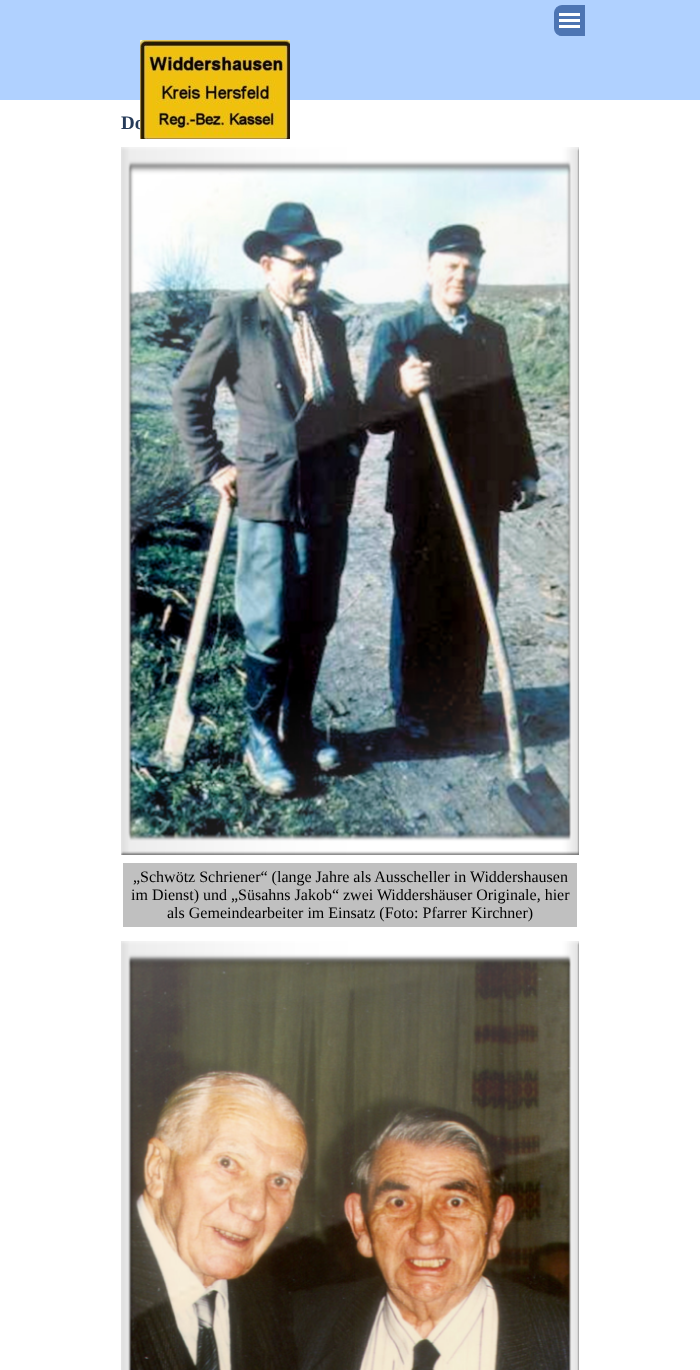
<!DOCTYPE html>
<meta charset="utf-8">
<style>body { margin: 0 } canvas { display: block }</style>
<canvas id="canvas" width="700" height="1370"></canvas>
<script type="module">
  const canvas = document.getElementById("canvas");
  const ctx = canvas.getContext("2d");
  ctx.miterLimit = 4;
  ctx.fontKerning = "normal";
  async function loadImage(src) {
    const img = new Image();
    img.src = src;
    await img.decode();
    return img;
  }

  ctx.fillStyle = "#ffffff";
  ctx.fillRect(0, 0, 700, 1370);
  ctx.fillStyle = "#b0d1ff";
  ctx.fillRect(0, 0, 700, 100);
  ctx.drawImage(await loadImage("img1.png"), 554, 5, 31, 31);
  ctx.fillStyle = "#ffffff";
  ctx.fillRect(559, 13, 21, 3);
  ctx.fillRect(559, 19, 21, 3);
  ctx.fillRect(559, 25, 21, 3);
  ctx.font = "bold 19px Liberation Serif";
  ctx.fillStyle = "#253a58";
  ctx.fillText("Do", 121, 129);
  ctx.drawImage(await loadImage("img2.png"), 140, 40, 150, 99);
  ctx.drawImage(await loadImage("img3.png"), 121, 147, 458, 708);
  ctx.fillStyle = "#c0c0c0";
  ctx.fillRect(123, 863, 454, 64);
  ctx.font = "16px Liberation Serif";
  ctx.fillStyle = "#000000";
  ctx.fillText("„Schwötz Schriener“ (lange Jahre als Ausscheller in Widdershausen", 133, 882);
  ctx.fillText("im Dienst) und „Süsahns Jakob“ zwei Widdershäuser Originale, hier", 131, 900);
  ctx.fillText("als Gemeindearbeiter im Einsatz (Foto: Pfarrer Kirchner)", 167, 918);
  ctx.drawImage(await loadImage("img4.png"), 121, 941, 458, 429);
</script>
